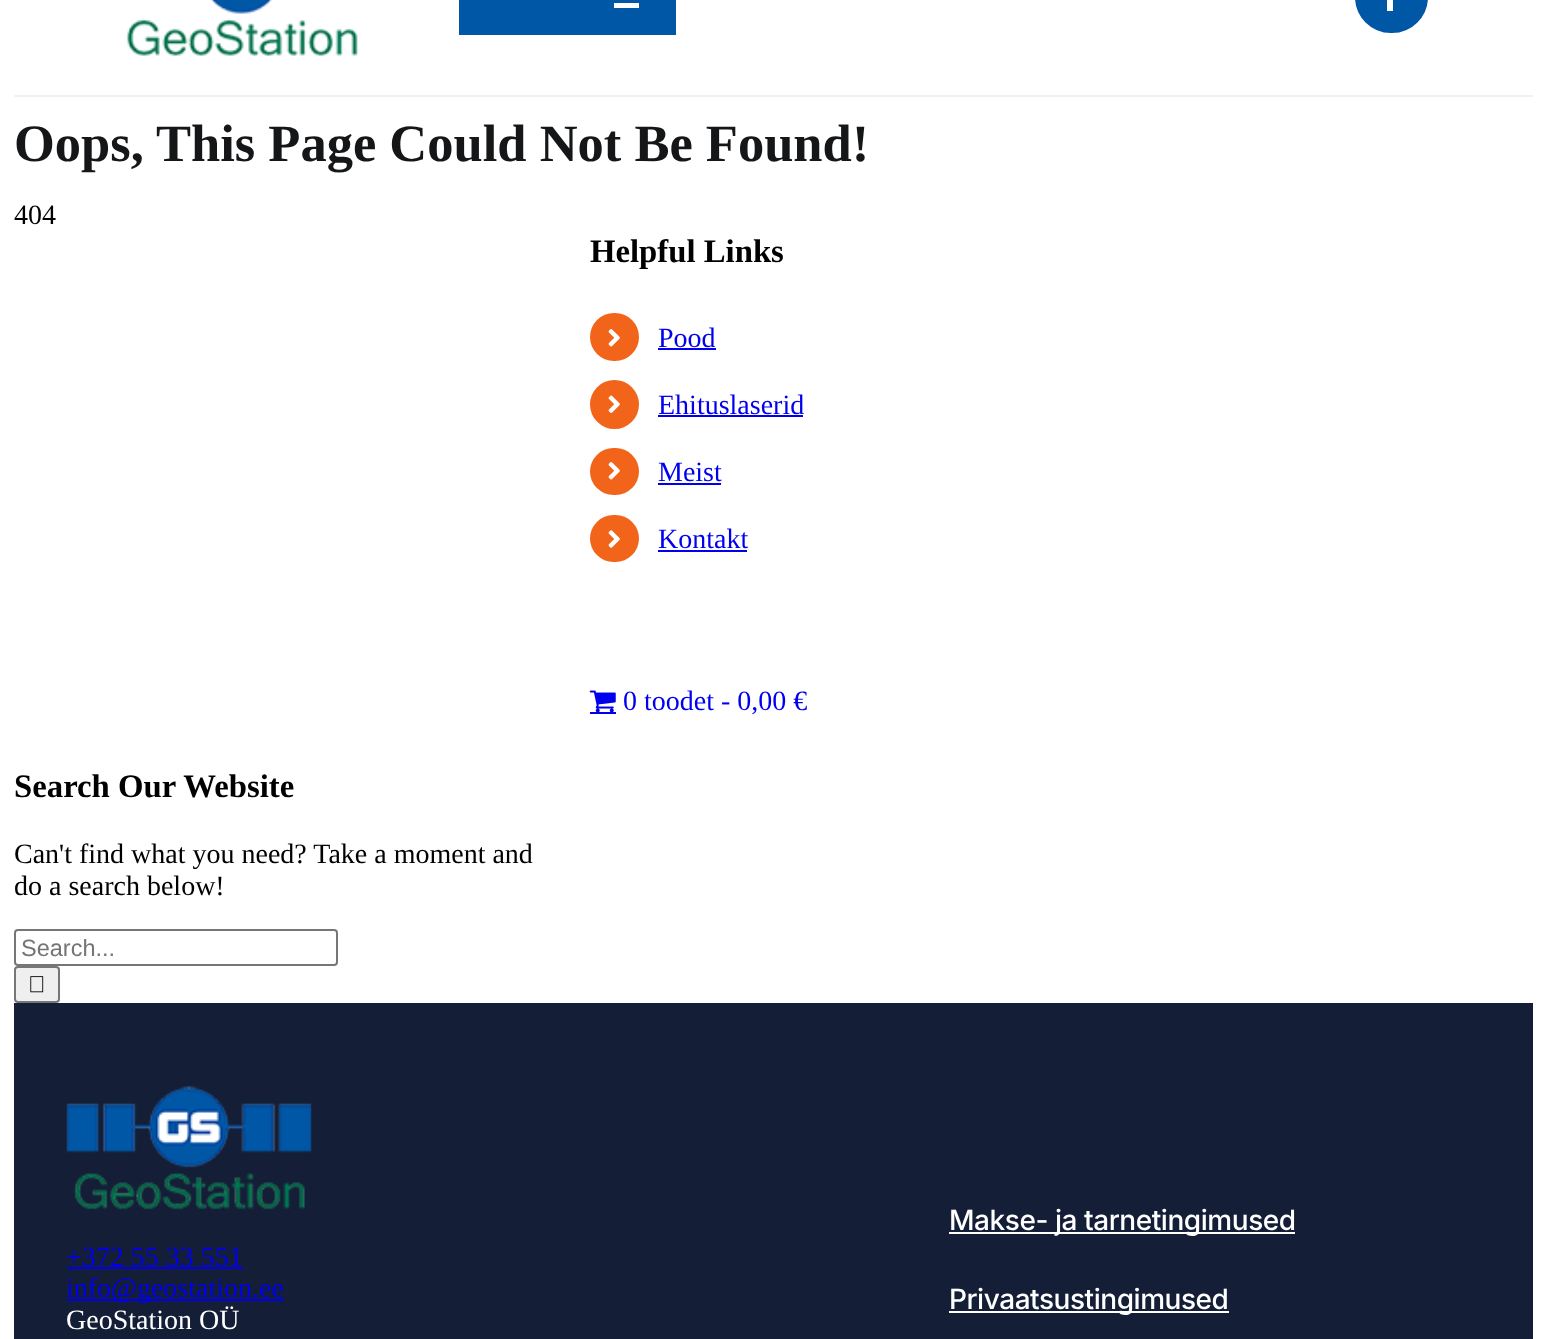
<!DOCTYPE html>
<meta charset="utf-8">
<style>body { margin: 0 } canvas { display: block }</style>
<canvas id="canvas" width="1547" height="1339"></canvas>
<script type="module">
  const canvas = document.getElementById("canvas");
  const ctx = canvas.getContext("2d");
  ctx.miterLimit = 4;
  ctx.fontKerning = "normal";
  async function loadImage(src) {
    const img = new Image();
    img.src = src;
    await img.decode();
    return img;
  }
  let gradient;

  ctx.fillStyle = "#ffffff";
  ctx.fillRect(0, 0, 1547, 1339);
  ctx.fillStyle = "#f2f2f2";
  ctx.fillRect(14, 95, 1519, 2);
  ctx.drawImage(await loadImage("img1.png"), 126, 0, 232, 56);
  ctx.fillStyle = "#0057a6";
  ctx.fillRect(459, 0, 217, 35);
  ctx.fillStyle = "#ffffff";
  ctx.fillRect(614, 3, 25, 5);
  ctx.fillStyle = "#0057a6";
  ctx.beginPath();
  ctx.roundRect(1356, -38, 71, 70, 35.5);
  ctx.fill();
  ctx.strokeStyle = "#0057a6";
  ctx.lineWidth = 2;
  ctx.stroke();
  ctx.fillStyle = "#ffffff";
  ctx.fillRect(1387, 0, 6, 11);
  ctx.font = "bold 52.5px Liberation Serif";
  ctx.fillStyle = "#141617";
  ctx.fillText("Oops, This Page Could Not Be Found!", 14, 161);
  ctx.font = "28px Liberation Serif";
  ctx.fillStyle = "#000000";
  ctx.fillText("404", 14, 224);
  ctx.font = "bold 32.75px Liberation Serif";
  ctx.fillText("Helpful Links", 590, 262);
  ctx.fillStyle = "#f26419";
  ctx.beginPath();
  ctx.roundRect(590, 313, 49, 48, 24);
  ctx.fill();
  ctx.drawImage(await loadImage("img2.png"), 608, 329, 12, 18);
  ctx.font = "28px Liberation Serif";
  ctx.fillStyle = "#0000ee";
  ctx.fillText("Pood", 658, 347);
  ctx.fillRect(658, 348, 58, 2);
  ctx.fillStyle = "#f26419";
  ctx.beginPath();
  ctx.arc(614.5, 404.5, 24.5, 0, Math.PI * 2);
  ctx.fill();
  ctx.drawImage(await loadImage("img3.png"), 608, 395, 12, 18);
  ctx.fillStyle = "#0000ee";
  ctx.fillText("Ehituslaserid", 658, 414);
  ctx.fillRect(658, 415, 145, 2);
  ctx.fillStyle = "#f26419";
  ctx.beginPath();
  ctx.roundRect(590, 448, 49, 47, 23.5);
  ctx.fill();
  ctx.drawImage(await loadImage("img2.png"), 608, 462, 12, 18);
  ctx.fillStyle = "#0000ee";
  ctx.fillText("Meist", 658, 481);
  ctx.fillRect(658, 483, 63, 2);
  ctx.fillStyle = "#f26419";
  ctx.beginPath();
  ctx.roundRect(590, 515, 49, 47, 23.5);
  ctx.fill();
  ctx.drawImage(await loadImage("img4.png"), 608, 530, 12, 18);
  ctx.fillStyle = "#0000ee";
  ctx.fillText("Kontakt", 658, 548);
  ctx.fillRect(658, 550, 89, 2);
  ctx.drawImage(await loadImage("img5.png"), 589, 690, 27, 22);
  ctx.fillText("0 toodet - 0,00 €", 623, 710);
  ctx.fillRect(590, 712, 26, 2);
  ctx.font = "bold 32.75px Liberation Serif";
  ctx.fillStyle = "#000000";
  ctx.fillText("Search Our Website", 14, 797);
  ctx.font = "28px Liberation Serif";
  ctx.fillText("Can't find what you need? Take a moment and", 14, 863);
  ctx.fillText("do a search below!", 14, 895);
  ctx.beginPath();
  ctx.roundRect(15, 930, 322, 35, 3);
  ctx.strokeStyle = "#767676";
  ctx.stroke();
  ctx.font = "23.5px Liberation Sans";
  ctx.fillStyle = "#757575";
  ctx.fillText("Search...", 21, 956);
  ctx.fillStyle = "#efefef";
  ctx.beginPath();
  ctx.roundRect(15, 967, 44, 35, 3);
  ctx.fill();
  ctx.stroke();
  ctx.drawImage(await loadImage("img6.png"), 30, 976, 14, 17);
  gradient = ctx.createLinearGradient(92, 867, 1455, 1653);
  gradient.addColorStop(0.48, "#141f37");
  gradient.addColorStop(0.48, "#141e36");
  ctx.fillStyle = gradient;
  ctx.fillRect(14, 1003, 1519, 336);
  ctx.drawImage(await loadImage("img7.png"), 66, 1086, 246, 124);
  ctx.font = "28px Liberation Serif";
  ctx.fillStyle = "#0000ee";
  ctx.fillText("+372 55 33 551", 66, 1266);
  ctx.fillRect(67, 1267, 176, 2);
  ctx.fillRect(67, 1299, 217, 2);
  ctx.fillText("info@geostation.ee", 66, 1297);
  ctx.fillStyle = "#ffffff";
  ctx.fillText("GeoStation OÜ", 66, 1329);
  ctx.fillRect(949, 1232, 346, 2);
  ctx.letterSpacing = "-0.45px";
  ctx.font = "500 28px Inter";
  ctx.fillText("Makse- ja tarnetingimused", 949, 1230);
  ctx.fillRect(949, 1311, 280, 2);
  ctx.fillText("Privaatsustingimused", 949, 1309);
</script>
